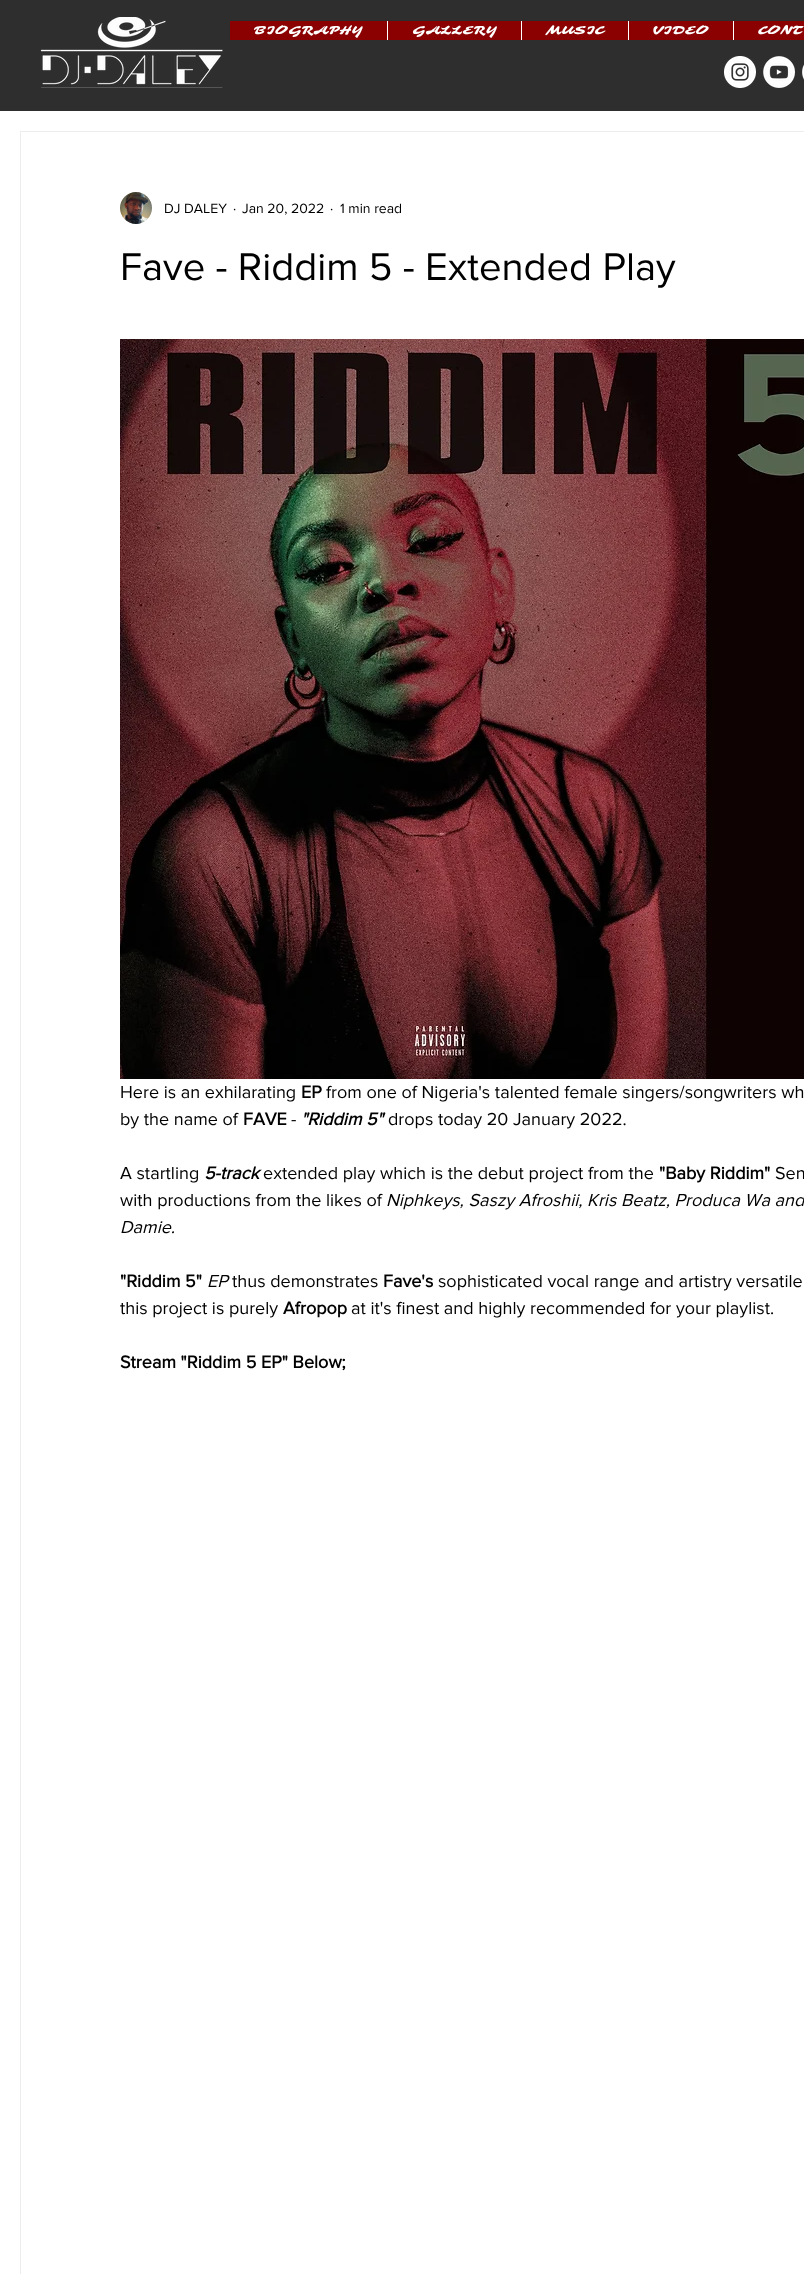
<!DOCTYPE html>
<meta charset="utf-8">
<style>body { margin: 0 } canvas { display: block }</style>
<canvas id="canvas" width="804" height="2274"></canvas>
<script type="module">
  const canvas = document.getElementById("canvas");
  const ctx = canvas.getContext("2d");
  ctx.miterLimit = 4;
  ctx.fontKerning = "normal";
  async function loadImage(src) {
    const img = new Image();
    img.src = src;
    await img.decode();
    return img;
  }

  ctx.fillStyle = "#ffffff";
  ctx.fillRect(0, 0, 804, 2274);
  ctx.fillStyle = "#2f2e2e";
  ctx.fillRect(0, 0, 804, 111);
  ctx.drawImage(await loadImage("img1.png"), 40, 17, 183, 71);
  ctx.fillStyle = "#8b0000";
  ctx.fillRect(230, 21, 574, 19);
  ctx.font = "12px Sarina";
  ctx.fillStyle = "#ffffff";
  ctx.fillText("BIOGRAPHY", 254, 34);
  ctx.fillRect(387, 21, 1, 19);
  ctx.fillText("GALLERY", 412, 34);
  ctx.fillRect(521, 21, 1, 19);
  ctx.fillText("MUSIC", 546, 34);
  ctx.fillRect(628, 21, 1, 19);
  ctx.fillText("VIDEO", 653, 34);
  ctx.fillRect(733, 21, 1, 19);
  ctx.fillText("CONT", 758, 34);
  ctx.drawImage(await loadImage("img2.png"), 724, 56, 32, 32);
  ctx.drawImage(await loadImage("img3.png"), 763, 56, 32, 32);
  ctx.drawImage(await loadImage("img4.png"), 802, 64, 2, 16);
  ctx.strokeStyle = "#eeecec";
  ctx.strokeRect(20.5, 131.5, 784, 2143);
  ctx.drawImage(await loadImage("img5.png"), 120, 192, 32, 32);
  ctx.font = "14px 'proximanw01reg'";
  ctx.fillStyle = "#000000";
  ctx.fillText("DJ DALEY", 164, 213);
  ctx.fillText("·", 233, 213);
  ctx.fillText("Jan 20, 2022", 242, 213);
  ctx.fillText("·", 330, 213);
  ctx.fillText("1 min read", 340, 213);
  ctx.font = "40px 'proximanw01reg'";
  ctx.fillText("Fave - Riddim 5 - Extended Play", 120, 280);
  ctx.drawImage(await loadImage("img6.png"), 120, 339, 684, 740);
  ctx.font = "18px 'proximanw01reg'";
  ctx.fillText("Here is an exhilarating", 120, 1098);
  ctx.font = "bold 18px 'proximanw01reg'";
  ctx.fillText("EP", 301, 1098);
  ctx.font = "18px 'proximanw01reg'";
  ctx.fillText("from one of Nigeria's talented female singers/songwriters wh", 326, 1098);
  ctx.fillText("by the name of", 120, 1125);
  ctx.font = "bold 18px 'proximanw01reg'";
  ctx.fillText("FAVE", 243, 1125);
  ctx.font = "18px 'proximanw01reg'";
  ctx.fillText("-", 291, 1125);
  ctx.font = "italic bold 18px 'proximanw01reg'";
  ctx.fillText("\"Riddim 5\"", 301, 1125);
  ctx.font = "18px 'proximanw01reg'";
  ctx.fillText("drops today 20 January 2022.", 388, 1125);
  ctx.fillText("A startling", 120, 1179);
  ctx.font = "italic bold 18px 'proximanw01reg'";
  ctx.fillText("5-track", 204, 1179);
  ctx.font = "18px 'proximanw01reg'";
  ctx.fillText("extended play which is the debut project from the", 263, 1179);
  ctx.font = "bold 18px 'proximanw01reg'";
  ctx.fillText("\"Baby Riddim\"", 659, 1179);
  ctx.font = "18px 'proximanw01reg'";
  ctx.fillText("Sen", 775, 1179);
  ctx.fillText("with productions from the likes of", 120, 1206);
  ctx.font = "italic 18px 'proximanw01reg'";
  ctx.fillText("Niphkeys, Saszy Afroshii, Kris Beatz, Produca Wa and", 386, 1206);
  ctx.fillText("Damie.", 120, 1233);
  ctx.font = "bold 18px 'proximanw01reg'";
  ctx.fillText("\"Riddim 5\"", 120, 1287);
  ctx.font = "italic 18px 'proximanw01reg'";
  ctx.fillText("EP", 207, 1287);
  ctx.font = "18px 'proximanw01reg'";
  ctx.fillText("thus demonstrates", 232, 1287);
  ctx.font = "bold 18px 'proximanw01reg'";
  ctx.fillText("Fave's", 383, 1287);
  ctx.font = "18px 'proximanw01reg'";
  ctx.fillText("sophisticated vocal range and artistry versatile", 438, 1287);
  ctx.fillText("this project is purely", 120, 1314);
  ctx.font = "bold 18px 'proximanw01reg'";
  ctx.fillText("Afropop", 283, 1314);
  ctx.font = "18px 'proximanw01reg'";
  ctx.fillText("at it's finest and highly recommended for your playlist.", 351, 1314);
  ctx.font = "bold 18px 'proximanw01reg'";
  ctx.fillText("Stream \"Riddim 5 EP\" Below;", 120, 1368);
</script>
